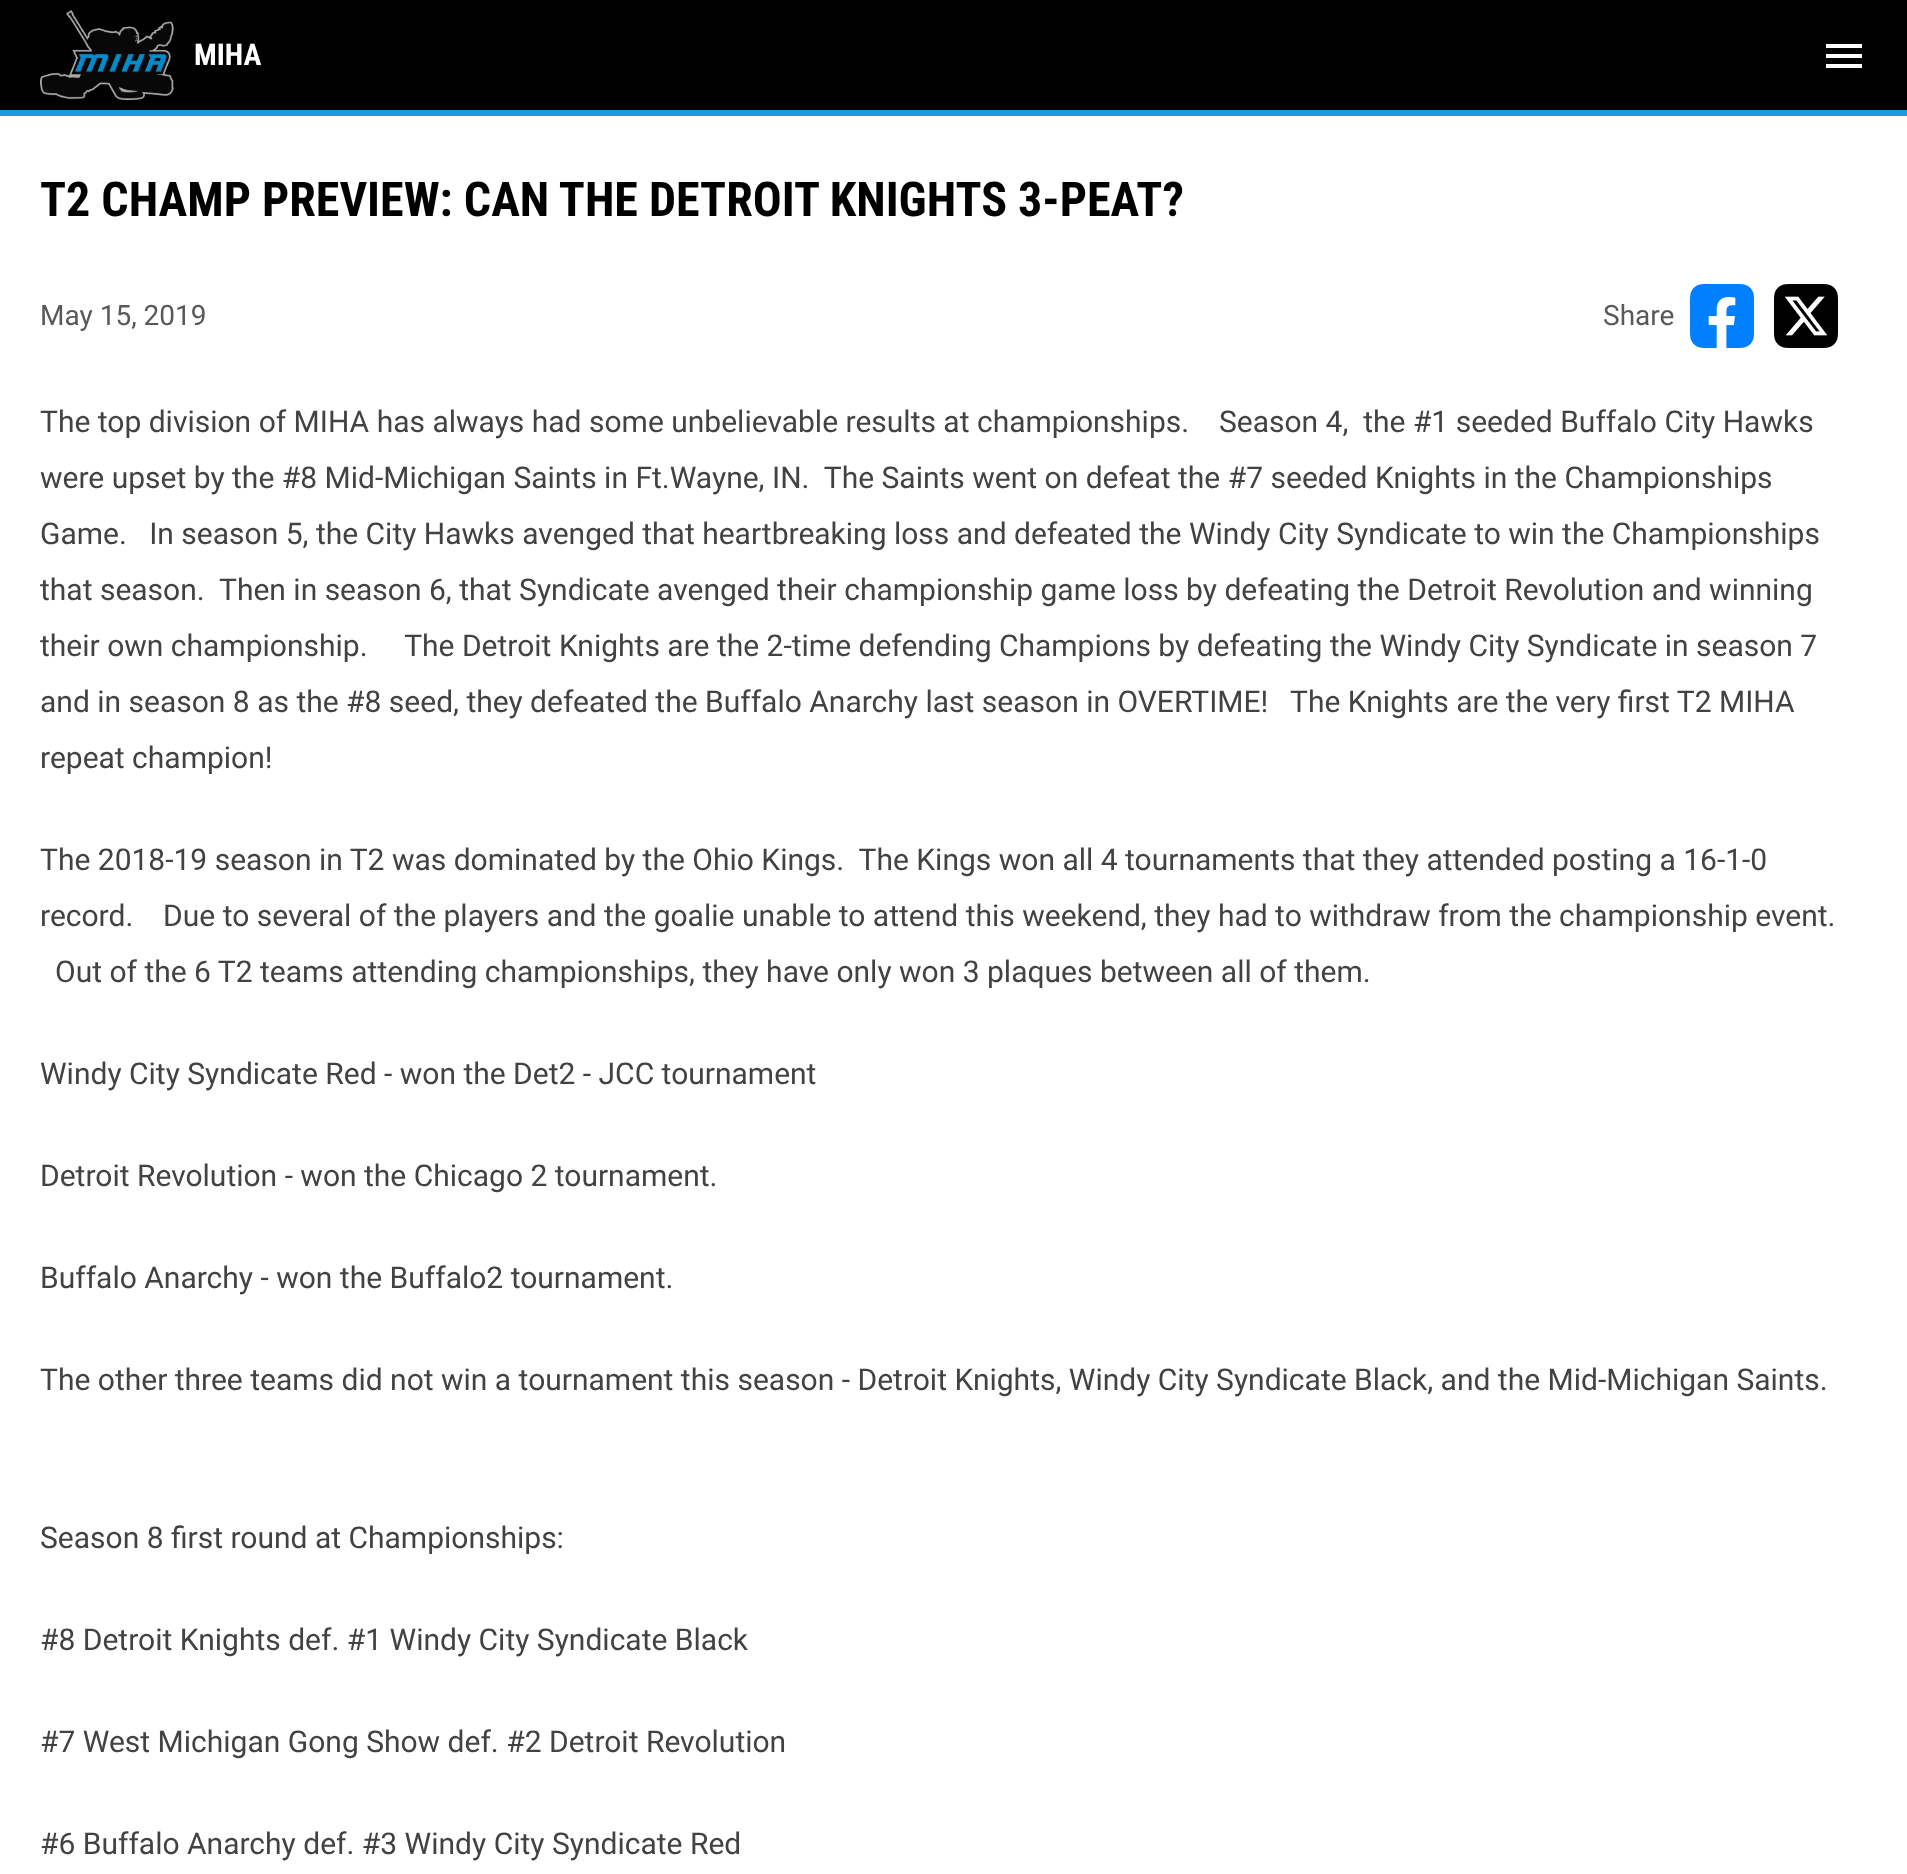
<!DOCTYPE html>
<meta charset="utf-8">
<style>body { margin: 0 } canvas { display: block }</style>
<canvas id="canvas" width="1907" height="1874"></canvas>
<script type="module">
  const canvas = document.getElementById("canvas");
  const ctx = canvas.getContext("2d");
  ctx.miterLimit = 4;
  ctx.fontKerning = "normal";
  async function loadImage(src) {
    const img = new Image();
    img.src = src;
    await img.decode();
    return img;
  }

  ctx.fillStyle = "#ffffff";
  ctx.fillRect(0, 0, 1907, 1874);
  ctx.fillStyle = "#000000";
  ctx.fillRect(0, 0, 1907, 110);
  ctx.drawImage(await loadImage("img1.png"), 40, 10, 134, 90);
  ctx.font = "bold 30px Roboto Condensed";
  ctx.fillStyle = "#ffffff";
  ctx.fillText("MIHA", 194, 65);
  ctx.beginPath();
  ctx.moveTo(1826, 44);
  ctx.lineTo(1862, 44);
  ctx.lineTo(1862, 48);
  ctx.lineTo(1826, 48);
  ctx.closePath();
  ctx.moveTo(1826, 58);
  ctx.lineTo(1826, 54);
  ctx.lineTo(1862, 54);
  ctx.lineTo(1862, 58);
  ctx.closePath();
  ctx.moveTo(1826, 68);
  ctx.lineTo(1826, 64);
  ctx.lineTo(1862, 64);
  ctx.lineTo(1862, 68);
  ctx.closePath();
  ctx.fill();
  ctx.fillStyle = "#1e98de";
  ctx.fillRect(0, 110, 1907, 6);
  ctx.font = "bold 48px Roboto Condensed";
  ctx.fillStyle = "#000000";
  ctx.fillText("T2 CHAMP PREVIEW: CAN THE DETROIT KNIGHTS 3-PEAT?", 40, 216);
  ctx.font = "28px Roboto";
  ctx.fillStyle = "#595959";
  ctx.fillText("May 15, 2019", 40, 325);
  ctx.fillText("Share", 1603, 325);
  ctx.drawImage(await loadImage("img2.png"), 1690, 284, 64, 64);
  ctx.drawImage(await loadImage("img3.png"), 1774, 284, 64, 64);
  ctx.font = "30px Roboto";
  ctx.fillStyle = "#424242";
  ctx.fillText("The top division of MIHA has always had some unbelievable results at championships.    Season 4,  the #1 seeded Buffalo City Hawks", 40, 432);
  ctx.fillText("were upset by the #8 Mid-Michigan Saints in Ft.Wayne, IN.  The Saints went on defeat the #7 seeded Knights in the Championships", 40, 488);
  ctx.fillText("Game.   In season 5, the City Hawks avenged that heartbreaking loss and defeated the Windy City Syndicate to win the Championships", 40, 544);
  ctx.fillText("that season.  Then in season 6, that Syndicate avenged their championship game loss by defeating the Detroit Revolution and winning", 40, 600);
  ctx.fillText("their own championship.     The Detroit Knights are the 2-time defending Champions by defeating the Windy City Syndicate in season 7", 40, 656);
  ctx.fillText("and in season 8 as the #8 seed, they defeated the Buffalo Anarchy last season in OVERTIME!   The Knights are the very first T2 MIHA", 40, 712);
  ctx.fillText("repeat champion!", 40, 768);
  ctx.fillText("The 2018-19 season in T2 was dominated by the Ohio Kings.  The Kings won all 4 tournaments that they attended posting a 16-1-0", 40, 870);
  ctx.fillText("record.    Due to several of the players and the goalie unable to attend this weekend, they had to withdraw from the championship event.", 40, 926);
  ctx.fillText("Out of the 6 T2 teams attending championships, they have only won 3 plaques between all of them.", 55, 982);
  ctx.fillText("Windy City Syndicate Red - won the Det2 - JCC tournament", 40, 1084);
  ctx.fillText("Detroit Revolution - won the Chicago 2 tournament.", 40, 1186);
  ctx.fillText("Buffalo Anarchy - won the Buffalo2 tournament.", 40, 1288);
  ctx.fillText("The other three teams did not win a tournament this season - Detroit Knights, Windy City Syndicate Black, and the Mid-Michigan Saints.", 40, 1390);
  ctx.fillText("Season 8 first round at Championships:", 40, 1548);
  ctx.fillText("#8 Detroit Knights def. #1 Windy City Syndicate Black", 40, 1650);
  ctx.fillText("#7 West Michigan Gong Show def. #2 Detroit Revolution", 40, 1752);
  ctx.fillText("#6 Buffalo Anarchy def. #3 Windy City Syndicate Red", 40, 1854);
</script>
